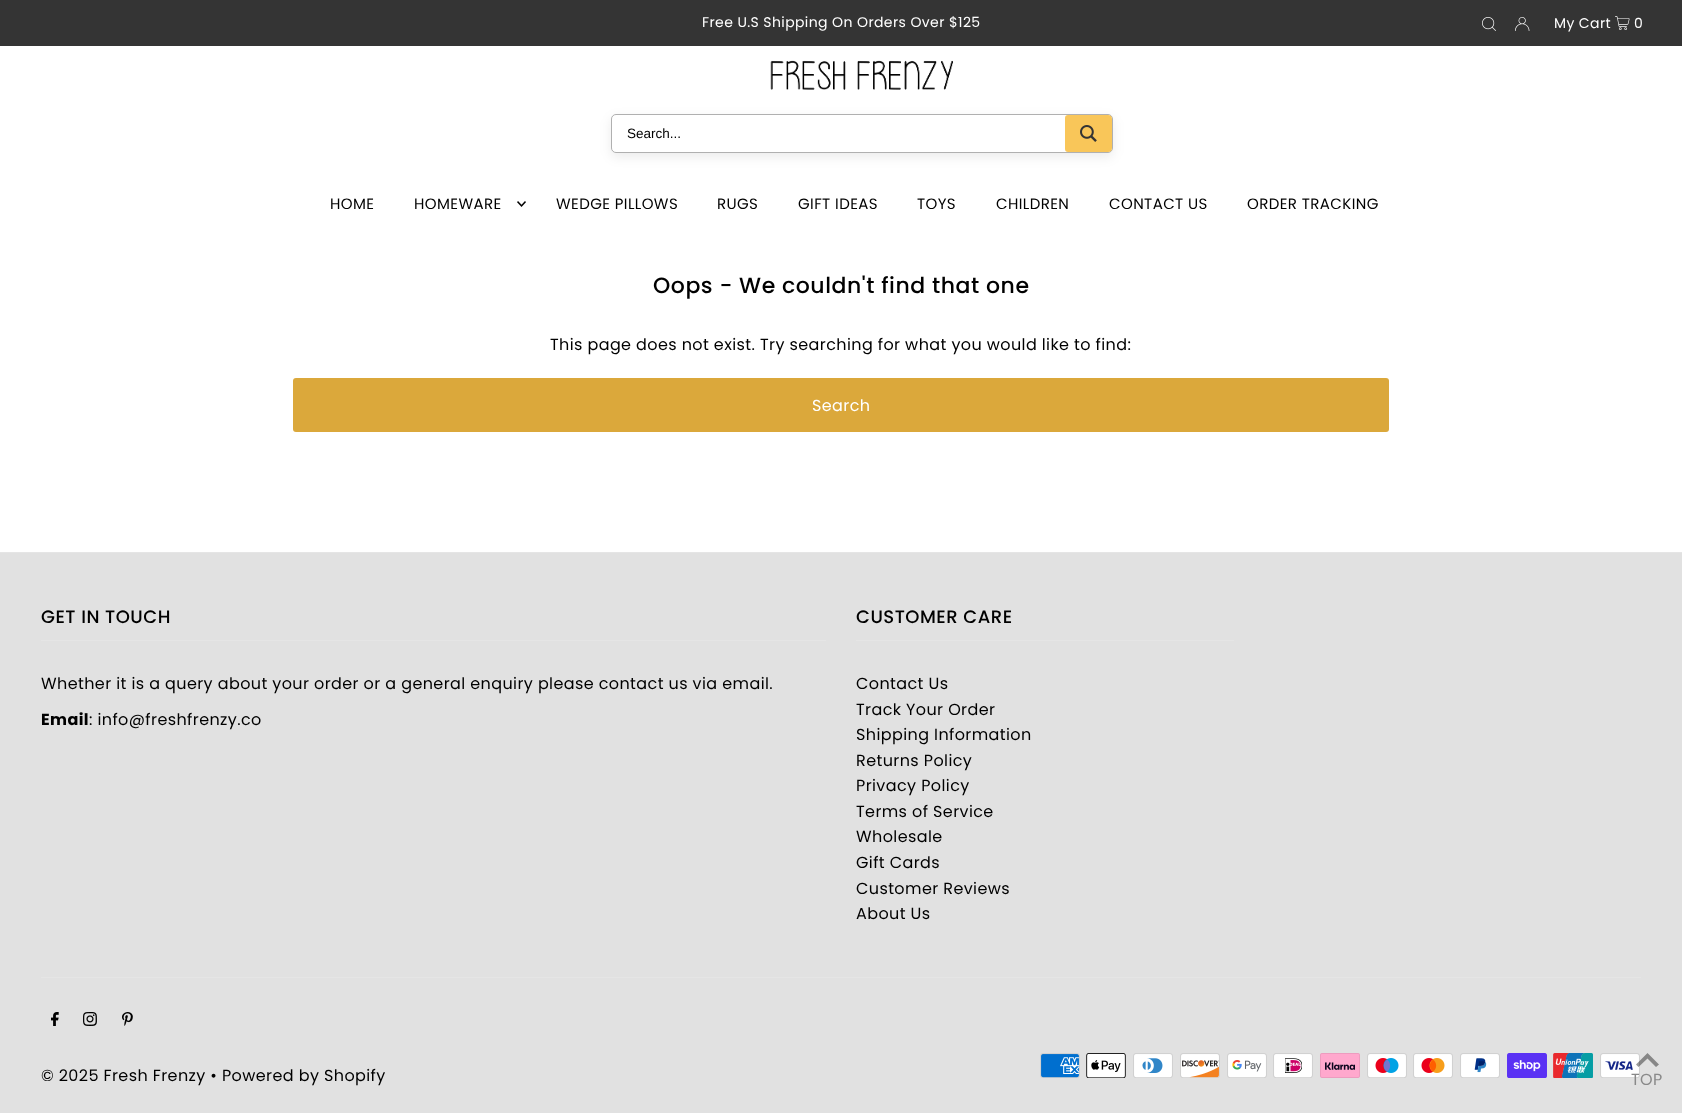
<!DOCTYPE html>
<meta charset="utf-8">
<style>body { margin: 0 } canvas { display: block }</style>
<canvas id="canvas" width="1682" height="1113"></canvas>
<script type="module">
  const canvas = document.getElementById("canvas");
  const ctx = canvas.getContext("2d");
  ctx.miterLimit = 4;
  ctx.fontKerning = "normal";
  async function loadImage(src) {
    const img = new Image();
    img.src = src;
    await img.decode();
    return img;
  }

  ctx.fillStyle = "#ffffff";
  ctx.fillRect(0, 0, 1682, 1113);
  ctx.fillStyle = "#343434";
  ctx.fillRect(0, 0, 1682, 46);
  ctx.letterSpacing = "0.4px";
  ctx.font = "14px Poppins";
  ctx.fillStyle = "#ffffff";
  ctx.fillText("Free U.S Shipping On Orders Over $125", 702, 27);
  ctx.drawImage(await loadImage("img1.png"), 1482, 17, 14, 14);
  ctx.drawImage(await loadImage("img2.png"), 1515, 17, 15, 14);
  ctx.fillText("My Cart", 1554, 28);
  ctx.drawImage(await loadImage("img3.png"), 1615, 16, 15, 14);
  ctx.fillText("0", 1634, 28);
  ctx.fillStyle = "rgba(0, 0, 0, 0.08)";
  ctx.filter = "blur(6px)";
  ctx.beginPath();
  ctx.roundRect(611, 118, 502, 39, 5);
  ctx.fill();
  ctx.filter = "none";
  ctx.fillStyle = "#ffffff";
  ctx.beginPath();
  ctx.roundRect(611.5, 114.5, 501, 38, 4.5);
  ctx.fill();
  ctx.strokeStyle = "#b0b0b0";
  ctx.stroke();
  ctx.letterSpacing = "0px";
  ctx.font = "13.5px Liberation Sans";
  ctx.fillStyle = "#000000";
  ctx.fillText("Search...", 627, 138);
  ctx.fillStyle = "#f9c659";
  ctx.beginPath();
  ctx.roundRect(1065, 115, 47, 37, [3, 4, 4, 3]);
  ctx.fill();
  ctx.drawImage(await loadImage("img4.png"), 1080, 125, 17, 17);
  ctx.drawImage(await loadImage("img5.png"), 770, 60, 183, 30);
  ctx.letterSpacing = "0.4px";
  ctx.font = "15px Poppins";
  ctx.fillStyle = "#000000";
  ctx.fillText("HOME", 330, 209);
  ctx.fillText("HOMEWARE", 414, 209);
  ctx.drawImage(await loadImage("img6.png"), 517, 201, 9, 6);
  ctx.fillText("WEDGE PILLOWS", 556, 209);
  ctx.fillText("RUGS", 717, 209);
  ctx.fillText("GIFT IDEAS", 798, 209);
  ctx.fillText("TOYS", 917, 209);
  ctx.fillText("CHILDREN", 996, 209);
  ctx.fillText("CONTACT US", 1109, 209);
  ctx.fillText("ORDER TRACKING", 1247, 209);
  ctx.letterSpacing = "0.55px";
  ctx.font = "500 22px Poppins";
  ctx.fillText("Oops - We couldn't find that one", 653, 293);
  ctx.letterSpacing = "0.4px";
  ctx.font = "16px Poppins";
  ctx.fillText("This page does not exist. Try searching for what you would like to find:", 550, 350);
  ctx.fillStyle = "#dba83b";
  ctx.beginPath();
  ctx.roundRect(293, 378, 1096, 54, 3);
  ctx.fill();
  ctx.fillStyle = "#ffffff";
  ctx.fillText("Search", 812, 411);
  ctx.fillStyle = "#e1e1e1";
  ctx.fillRect(0, 553, 1682, 560);
  ctx.fillStyle = "#e5e5e5";
  ctx.fillRect(0, 552, 1682, 1);
  ctx.fillRect(41, 640, 785, 1);
  ctx.letterSpacing = "0.5px";
  ctx.font = "500 18px Poppins";
  ctx.fillStyle = "#000000";
  ctx.fillText("GET IN TOUCH", 41, 623);
  ctx.letterSpacing = "0.4px";
  ctx.font = "16px Poppins";
  ctx.fillText("Whether it is a query about your order or a general enquiry please contact us via email.", 41, 689);
  ctx.font = "bold 16px Poppins";
  ctx.fillText("Email", 41, 725);
  ctx.font = "16px Poppins";
  ctx.fillText(": info@freshfrenzy.co", 89, 725);
  ctx.fillStyle = "#e5e5e5";
  ctx.fillRect(856, 640, 378, 1);
  ctx.letterSpacing = "0.5px";
  ctx.font = "500 18px Poppins";
  ctx.fillStyle = "#000000";
  ctx.fillText("CUSTOMER CARE", 856, 623);
  ctx.letterSpacing = "0.4px";
  ctx.font = "16px Poppins";
  ctx.fillText("Contact Us", 856, 689);
  ctx.fillText("Track Your Order", 856, 715);
  ctx.fillText("Shipping Information", 856, 740);
  ctx.fillText("Returns Policy", 856, 766);
  ctx.fillText("Privacy Policy", 856, 791);
  ctx.fillText("Terms of Service", 856, 817);
  ctx.fillText("Wholesale", 856, 842);
  ctx.fillText("Gift Cards", 856, 868);
  ctx.fillText("Customer Reviews", 856, 894);
  ctx.fillText("About Us", 856, 919);
  ctx.fillStyle = "#e5e5e5";
  ctx.fillRect(41, 977, 1600, 1);
  ctx.drawImage(await loadImage("img7.png"), 51, 1012, 8, 14);
  ctx.drawImage(await loadImage("img8.png"), 83, 1012, 14, 14);
  ctx.drawImage(await loadImage("img9.png"), 122, 1012, 11, 14);
  ctx.fillStyle = "#000000";
  ctx.fillText("© 2025 Fresh Frenzy • Powered by Shopify", 41, 1081);
  ctx.drawImage(await loadImage("img10.png"), 1040, 1053, 40, 25);
  ctx.drawImage(await loadImage("img11.png"), 1086, 1053, 40, 25);
  ctx.drawImage(await loadImage("img12.png"), 1133, 1053, 40, 25);
  ctx.drawImage(await loadImage("img13.png"), 1180, 1053, 40, 25);
  ctx.drawImage(await loadImage("img14.png"), 1227, 1053, 40, 25);
  ctx.drawImage(await loadImage("img15.png"), 1273, 1053, 40, 25);
  ctx.drawImage(await loadImage("img16.png"), 1320, 1053, 40, 25);
  ctx.drawImage(await loadImage("img17.png"), 1367, 1053, 40, 25);
  ctx.drawImage(await loadImage("img18.png"), 1413, 1053, 40, 25);
  ctx.drawImage(await loadImage("img19.png"), 1460, 1053, 40, 25);
  ctx.drawImage(await loadImage("img20.png"), 1507, 1053, 40, 25);
  ctx.drawImage(await loadImage("img21.png"), 1553, 1053, 40, 25);
  ctx.drawImage(await loadImage("img22.png"), 1600, 1053, 40, 25);
  ctx.fillStyle = "rgba(0, 0, 0, 0.4)";
  ctx.beginPath();
  ctx.moveTo(1647.5, 1053);
  ctx.lineTo(1636, 1064.5);
  ctx.lineTo(1638.5, 1067);
  ctx.lineTo(1647.5, 1058.5);
  ctx.lineTo(1656, 1067);
  ctx.lineTo(1659, 1064.5);
  ctx.closePath();
  ctx.fill();
  ctx.fillStyle = "#898989";
  ctx.fillText("TOP", 1631, 1085);
</script>
